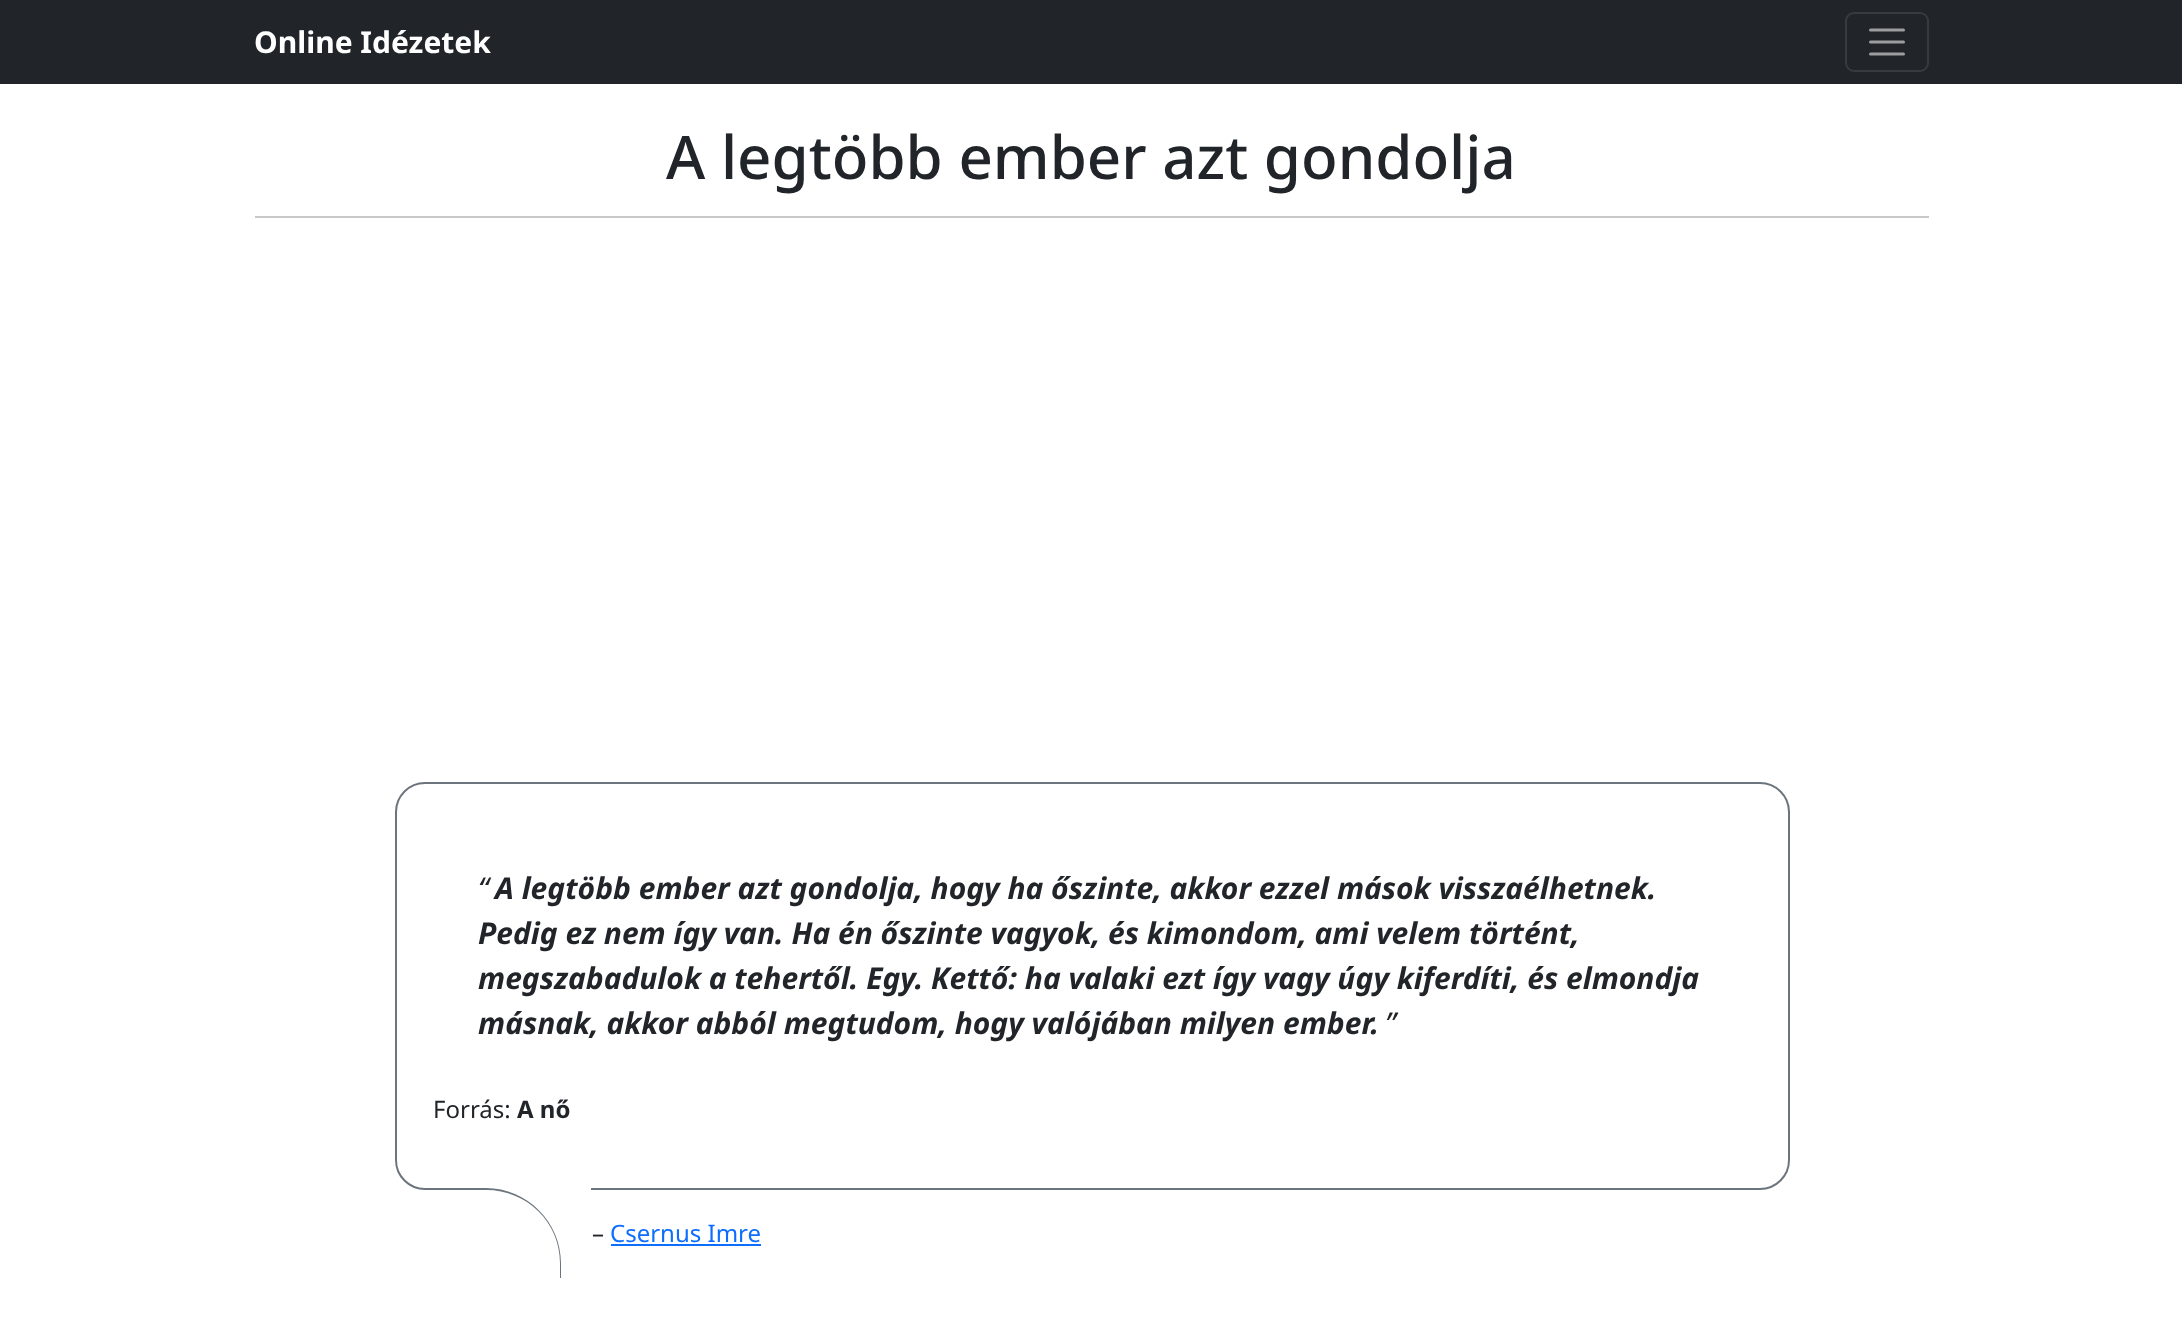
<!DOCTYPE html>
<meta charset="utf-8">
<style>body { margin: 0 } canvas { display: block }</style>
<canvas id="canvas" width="2182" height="1322"></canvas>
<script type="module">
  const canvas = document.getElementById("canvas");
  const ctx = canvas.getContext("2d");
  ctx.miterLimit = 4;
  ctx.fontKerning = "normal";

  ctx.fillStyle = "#ffffff";
  ctx.fillRect(0, 0, 2182, 1322);
  ctx.fillStyle = "#212529";
  ctx.fillRect(0, 0, 2182, 84);
  ctx.font = "bold 30px Noto Sans";
  ctx.fillStyle = "#ffffff";
  ctx.fillText("Online Idézetek", 254, 53);
  ctx.beginPath();
  ctx.roundRect(1846, 13, 82, 58, 8);
  ctx.strokeStyle = "#373b3e";
  ctx.lineWidth = 2;
  ctx.stroke();
  ctx.beginPath();
  ctx.moveTo(1870.5, 30);
  ctx.lineTo(1903.5, 30);
  ctx.moveTo(1870.5, 42);
  ctx.lineTo(1903.5, 42);
  ctx.moveTo(1870.5, 54);
  ctx.lineTo(1903.5, 54);
  ctx.strokeStyle = "#9b9d9f";
  ctx.lineWidth = 3;
  ctx.lineCap = "round";
  ctx.stroke();
  ctx.font = "500 60px Noto Sans";
  ctx.fillStyle = "#212529";
  ctx.fillText("A legtöbb ember azt gondolja", 666, 179);
  ctx.fillStyle = "#c8c9ca";
  ctx.fillRect(255, 216, 1674, 2);
  ctx.beginPath();
  ctx.roundRect(396, 783, 1393, 406, 29);
  ctx.strokeStyle = "#6c757d";
  ctx.lineWidth = 2;
  ctx.stroke();
  ctx.font = "italic 30px Noto Sans";
  ctx.fillStyle = "#212529";
  ctx.fillText("“", 478, 899);
  ctx.font = "italic bold 30px Noto Sans";
  ctx.fillText("A legtöbb ember azt gondolja, hogy ha őszinte, akkor ezzel mások visszaélhetnek.", 495, 899);
  ctx.fillText("Pedig ez nem így van. Ha én őszinte vagyok, és kimondom, ami velem történt,", 478, 944);
  ctx.fillText("megszabadulok a tehertől. Egy. Kettő: ha valaki ezt így vagy úgy kiferdíti, és elmondja", 478, 989);
  ctx.fillText("másnak, akkor abból megtudom, hogy valójában milyen ember.", 478, 1034);
  ctx.font = "italic 30px Noto Sans";
  ctx.fillText("”", 1385, 1034);
  ctx.font = "24px Noto Sans";
  ctx.fillText("Forrás:", 433, 1118);
  ctx.font = "bold 24px Noto Sans";
  ctx.fillText("A nő", 517, 1118);
  ctx.fillStyle = "#ffffff";
  ctx.fillRect(471, 1188, 120, 2);
  ctx.fillStyle = "#6c757d";
  ctx.beginPath();
  ctx.moveTo(471, 1188);
  ctx.lineTo(486, 1188);
  ctx.bezierCurveTo(527, 1188, 561, 1222, 561, 1263);
  ctx.lineTo(561, 1278);
  ctx.lineTo(471, 1278);
  ctx.closePath();
  ctx.moveTo(471, 1190);
  ctx.lineTo(486, 1190);
  ctx.bezierCurveTo(527, 1190, 560, 1222, 560, 1263);
  ctx.lineTo(560, 1278);
  ctx.lineTo(471, 1278);
  ctx.closePath();
  ctx.fill("evenodd");
  ctx.font = "24px Noto Sans";
  ctx.fillStyle = "#212529";
  ctx.fillText("–", 592, 1242);
  ctx.fillStyle = "#0d6efd";
  ctx.fillText("Csernus Imre", 610, 1242);
  ctx.fillRect(611, 1244, 150, 2);
</script>
